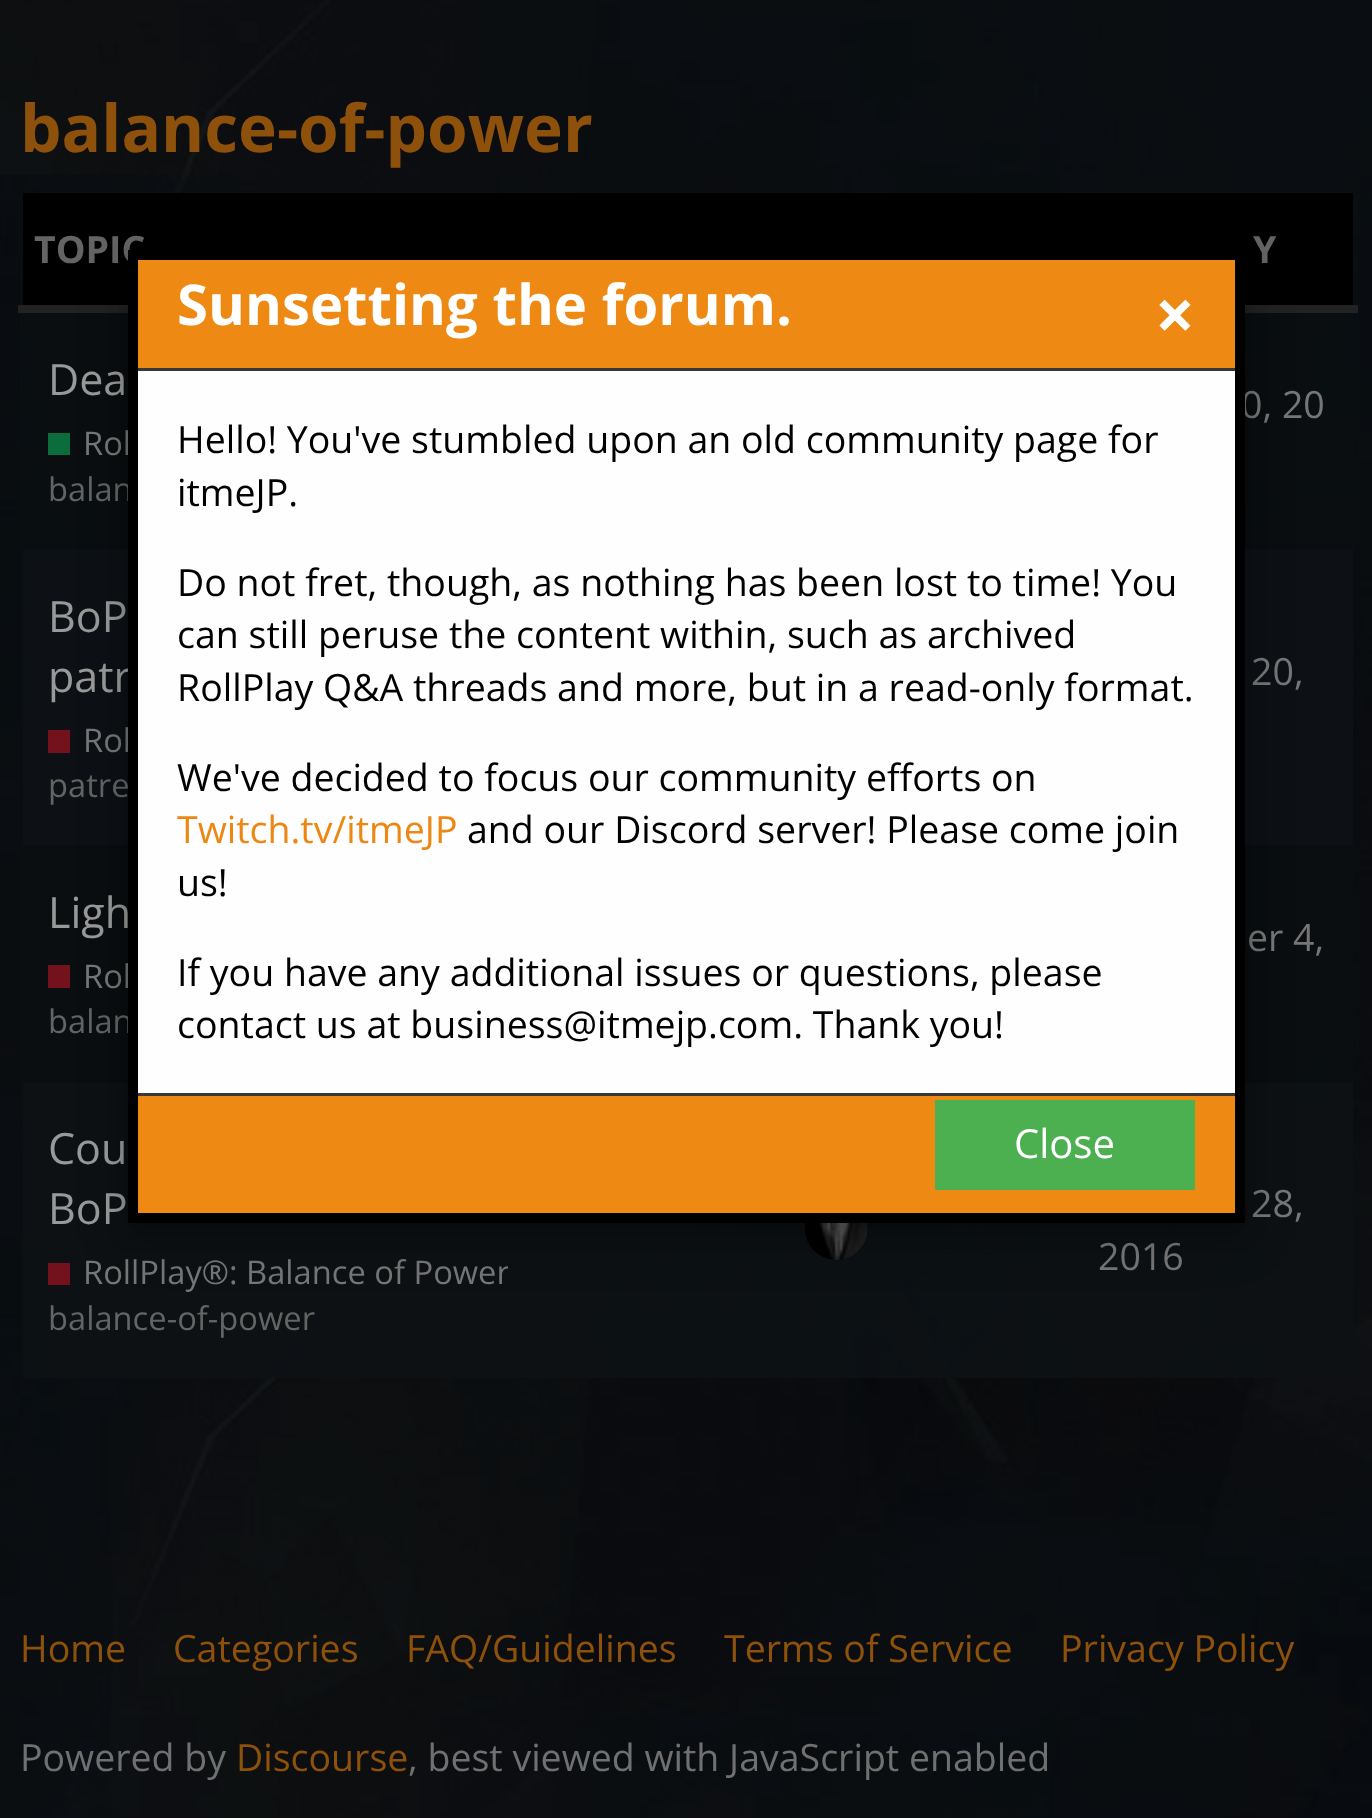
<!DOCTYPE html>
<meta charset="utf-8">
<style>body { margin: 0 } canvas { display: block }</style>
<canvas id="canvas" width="1372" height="1818"></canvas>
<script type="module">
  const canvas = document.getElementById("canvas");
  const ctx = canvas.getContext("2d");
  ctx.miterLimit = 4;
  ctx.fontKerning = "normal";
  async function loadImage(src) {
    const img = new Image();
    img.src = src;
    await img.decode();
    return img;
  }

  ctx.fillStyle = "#ffffff";
  ctx.fillRect(0, 0, 1372, 1818);
  ctx.drawImage(await loadImage("img1.png"), 0, 0, 1372, 1818);
  ctx.font = "bold 65.75px Open Sans";
  ctx.fillStyle = "#8e510b";
  ctx.fillText("balance-of-power", 20, 152);
  ctx.fillStyle = "rgba(10, 14, 17, 0.9)";
  ctx.fillRect(20, 193, 1333, 1185);
  ctx.fillStyle = "#000000";
  ctx.fillRect(23, 193, 770, 112);
  ctx.font = "bold 37.5px Open Sans";
  ctx.fillStyle = "#646464";
  ctx.fillText("TOPIC", 34, 263);
  ctx.fillStyle = "#000000";
  ctx.fillRect(793, 193, 292, 57);
  ctx.fillRect(1085, 193, 268, 112);
  ctx.fillStyle = "#646464";
  ctx.fillText("Y", 1253, 263);
  ctx.fillStyle = "#222222";
  ctx.fillRect(18, 305, 1340, 8);
  ctx.font = "43px Open Sans";
  ctx.fillStyle = "#999999";
  ctx.fillText("Dea", 48, 395);
  ctx.fillStyle = "#0a6d3b";
  ctx.fillRect(48, 433, 22, 22);
  ctx.font = "32.7px Open Sans";
  ctx.fillStyle = "#767676";
  ctx.fillText("Rol", 83, 455);
  ctx.fillStyle = "#646464";
  ctx.fillText("balan", 48, 501);
  ctx.font = "37.5px Open Sans";
  ctx.fillStyle = "#767676";
  ctx.fillText("0, 20", 1241, 418);
  ctx.fillStyle = "#0d1115";
  ctx.fillRect(23, 550, 1330, 295);
  ctx.font = "43px Open Sans";
  ctx.fillStyle = "#999999";
  ctx.fillText("BoP", 48, 632);
  ctx.fillText("patr", 48, 692);
  ctx.fillStyle = "#73121c";
  ctx.fillRect(48, 730, 22, 23);
  ctx.font = "32.7px Open Sans";
  ctx.fillStyle = "#767676";
  ctx.fillText("Rol", 83, 752);
  ctx.fillStyle = "#646464";
  ctx.fillText("patre", 48, 797);
  ctx.font = "37.5px Open Sans";
  ctx.fillStyle = "#767676";
  ctx.fillText("20,", 1251, 685);
  ctx.font = "43px Open Sans";
  ctx.fillStyle = "#999999";
  ctx.fillText("Ligh", 48, 928);
  ctx.fillStyle = "#73121c";
  ctx.fillRect(48, 965, 22, 23);
  ctx.font = "32.7px Open Sans";
  ctx.fillStyle = "#767676";
  ctx.fillText("Rol", 83, 988);
  ctx.fillStyle = "#646464";
  ctx.fillText("balan", 48, 1033);
  ctx.font = "37.5px Open Sans";
  ctx.fillStyle = "#767676";
  ctx.fillText("er 4,", 1247, 951);
  ctx.fillStyle = "rgba(14, 19, 23, 0.7)";
  ctx.fillRect(23, 1083, 1330, 295);
  ctx.font = "43px Open Sans";
  ctx.fillStyle = "#999999";
  ctx.fillText("Cou", 48, 1164);
  ctx.fillText("BoP", 48, 1224);
  ctx.fillStyle = "#73121c";
  ctx.fillRect(48, 1263, 22, 22);
  ctx.save();
  ctx.beginPath();
  ctx.rect(83, 1250, 425, 45);
  ctx.clip();
  ctx.font = "32.7px Open Sans";
  ctx.fillStyle = "#767676";
  ctx.fillText("RollPlay®: Balance of Power", 83, 1284);
  ctx.restore();
  ctx.font = "32.7px Open Sans";
  ctx.fillStyle = "#646464";
  ctx.fillText("balance-of-power", 48, 1330);
  ctx.drawImage(await loadImage("img2.png"), 805, 1223, 63, 37);
  ctx.font = "37.5px Open Sans";
  ctx.fillStyle = "#767676";
  ctx.fillText("28,", 1251, 1217);
  ctx.fillText("2016", 1098, 1270);
  ctx.fillStyle = "rgba(0, 0, 0, 0.19)";
  ctx.filter = "blur(25px)";
  ctx.beginPath();
  ctx.rect(128, 265, 1117, 973);
  ctx.fill();
  ctx.filter = "none";
  ctx.fillStyle = "rgba(0, 0, 0, 0.2)";
  ctx.filter = "blur(10px)";
  ctx.beginPath();
  ctx.rect(128, 260, 1117, 973);
  ctx.fill();
  ctx.filter = "none";
  ctx.fillStyle = "#fefefe";
  ctx.fillRect(138, 371, 1097, 722);
  ctx.strokeStyle = "#000000";
  ctx.lineWidth = 10;
  ctx.strokeRect(133, 255, 1107, 963);
  ctx.fillStyle = "#ee8913";
  ctx.fillRect(138, 260, 1097, 108);
  ctx.fillStyle = "#383838";
  ctx.fillRect(138, 368, 1097, 3);
  ctx.font = "bold 56.25px Open Sans";
  ctx.fillStyle = "#ffffff";
  ctx.fillText("Sunsetting the forum.", 177, 325);
  ctx.font = "bold 70px Open Sans";
  ctx.fillText("×", 1155, 340);
  ctx.font = "37.5px Open Sans";
  ctx.fillStyle = "#000000";
  ctx.fillText("Hello! You've stumbled upon an old community page for", 177, 453);
  ctx.fillText("itmeJP.", 177, 506);
  ctx.fillText("Do not fret, though, as nothing has been lost to time! You", 177, 596);
  ctx.fillText("can still peruse the content within, such as archived", 177, 648);
  ctx.fillText("RollPlay Q&A threads and more, but in a read-only format.", 177, 701);
  ctx.fillText("We've decided to focus our community efforts on", 177, 791);
  ctx.fillStyle = "#ed8713";
  ctx.fillText("Twitch.tv/itmeJP", 177, 843);
  ctx.fillStyle = "#000000";
  ctx.fillText("and our Discord server! Please come join", 467, 843);
  ctx.fillText("us!", 177, 896);
  ctx.fillText("If you have any additional issues or questions, please", 177, 986);
  ctx.fillText("contact us at business@itmejp.com. Thank you!", 177, 1038);
  ctx.fillStyle = "#ee8913";
  ctx.fillRect(138, 1096, 1097, 117);
  ctx.fillStyle = "#383838";
  ctx.fillRect(138, 1093, 1097, 3);
  ctx.fillStyle = "#4caf50";
  ctx.fillRect(935, 1100, 260, 90);
  ctx.font = "40px Open Sans";
  ctx.fillStyle = "#ffffff";
  ctx.fillText("Close", 1014, 1158);
  ctx.font = "37.5px Open Sans";
  ctx.fillStyle = "#8e510b";
  ctx.fillText("Home", 20, 1662);
  ctx.fillText("Categories", 173, 1662);
  ctx.fillText("FAQ/Guidelines", 406, 1662);
  ctx.fillText("Terms of Service", 724, 1662);
  ctx.fillText("Privacy Policy", 1060, 1662);
  ctx.fillStyle = "#707070";
  ctx.fillText("Powered by", 20, 1771);
  ctx.fillStyle = "#8e510b";
  ctx.fillText("Discourse", 236, 1771);
  ctx.fillStyle = "#707070";
  ctx.fillText(", best viewed with JavaScript enabled", 408, 1771);
</script>
